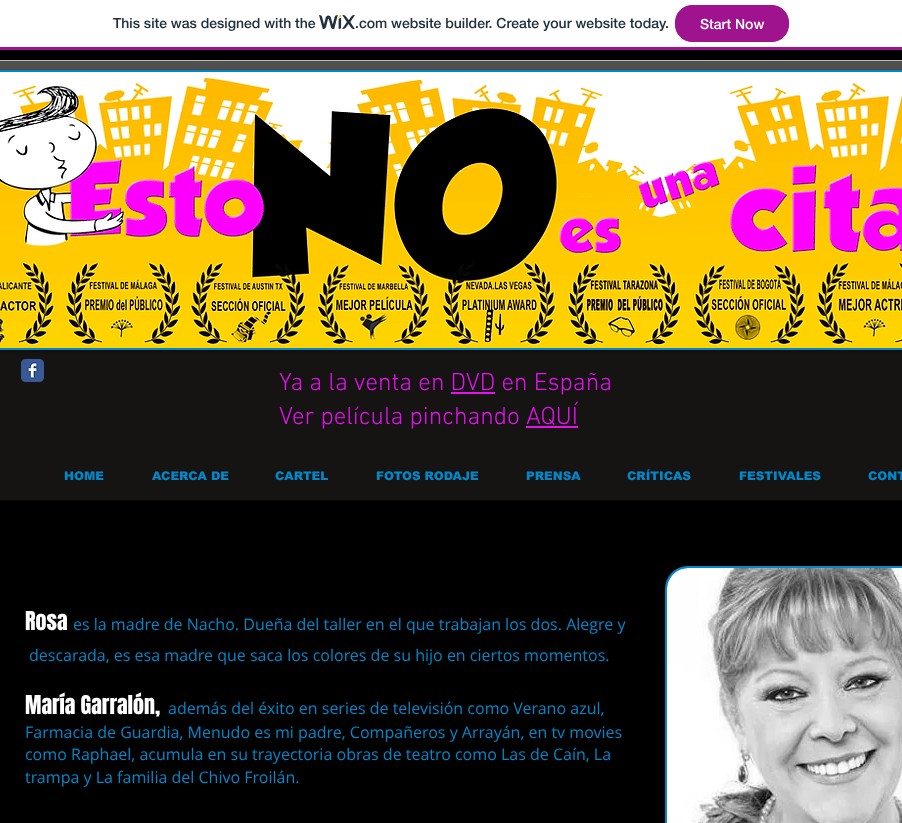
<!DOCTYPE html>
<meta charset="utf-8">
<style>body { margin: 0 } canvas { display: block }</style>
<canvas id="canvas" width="902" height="823"></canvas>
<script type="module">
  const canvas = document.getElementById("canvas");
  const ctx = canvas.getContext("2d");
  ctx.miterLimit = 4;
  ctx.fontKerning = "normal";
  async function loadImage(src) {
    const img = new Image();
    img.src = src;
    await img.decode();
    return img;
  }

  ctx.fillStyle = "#ffffff";
  ctx.fillRect(0, 0, 902, 823);
  ctx.fillStyle = "#a0138e";
  ctx.fillRect(0, 47, 902, 3);
  ctx.font = "500 14px 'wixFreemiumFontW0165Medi'";
  ctx.fillStyle = "#20303c";
  ctx.fillText("This site was designed with the", 113, 28);
  ctx.drawImage(await loadImage("img1.png"), 319, 15, 36, 15);
  ctx.fillText(".com website builder. Create your website today.", 355, 28);
  ctx.fillStyle = "#a0138e";
  ctx.beginPath();
  ctx.roundRect(675.5, 5.5, 113, 36, 16.5);
  ctx.fill();
  ctx.strokeStyle = "#a0138e";
  ctx.stroke();
  ctx.fillStyle = "#ffffff";
  ctx.fillText("Start Now", 700, 29);
  ctx.fillStyle = "#000000";
  ctx.fillRect(0, 50, 902, 773);
  ctx.fillStyle = "#161413";
  ctx.fillRect(0, 61, 902, 439);
  ctx.drawImage(await loadImage("img2.png"), 0, 61, 902, 9);
  ctx.fillStyle = "#090808";
  ctx.fillRect(0, 500, 902, 1);
  ctx.fillStyle = "#bab9b9";
  ctx.fillRect(0, 60, 902, 1);
  ctx.fillStyle = "rgba(0, 0, 0, 0.5)";
  ctx.filter = "blur(1.5px)";
  ctx.beginPath();
  ctx.roundRect(-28, 71, 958, 280, 23);
  ctx.fill();
  ctx.filter = "none";
  ctx.fillStyle = "#0088cb";
  ctx.fillRect(0, 70, 902, 280);
  ctx.drawImage(await loadImage("img3.png"), 0, 72, 902, 276);
  ctx.drawImage(await loadImage("img4.png"), 21, 359, 23, 23);
  ctx.font = "300 25px 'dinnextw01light'";
  ctx.fillStyle = "#e512f0";
  ctx.fillText("Ya a la venta en DVD en España", 279, 390);
  ctx.fillRect(451, 392, 44, 2);
  ctx.fillText("Ver película pinchando AQUÍ", 279, 424);
  ctx.fillRect(526, 426, 52, 2);
  ctx.font = "900 12px arial";
  ctx.fillStyle = "#0088cb";
  ctx.fillText("HOME", 64, 480);
  ctx.fillText("ACERCA DE", 152, 480);
  ctx.fillText("CARTEL", 275, 480);
  ctx.fillText("FOTOS RODAJE", 376, 480);
  ctx.fillText("PRENSA", 526, 480);
  ctx.fillText("CRÍTICAS", 627, 480);
  ctx.fillText("FESTIVALES", 739, 480);
  ctx.fillText("CONT", 868, 480);
  ctx.font = "22px Anton";
  ctx.fillStyle = "#ffffff";
  ctx.fillText("Rosa", 25, 630);
  ctx.font = "16px Open Sans";
  ctx.fillStyle = "#0088cb";
  ctx.fillText("es la madre de Nacho. Dueña del taller en el que trabajan los dos. Alegre y", 73, 630);
  ctx.fillText("descarada, es esa madre que saca los colores de su hijo en ciertos momentos.", 29, 661);
  ctx.font = "22px Anton";
  ctx.fillStyle = "#ffffff";
  ctx.fillText("María Garralón,", 25, 714);
  ctx.font = "16px Open Sans";
  ctx.fillStyle = "#0088cb";
  ctx.fillText("además del éxito en series de televisión como Verano azul,", 168, 714);
  ctx.fillText("Farmacia de Guardia, Menudo es mi padre, Compañeros y Arrayán, en tv movies", 25, 738);
  ctx.fillText("como Raphael, acumula en su trayectoria obras de teatro como Las de Caín, La", 25, 760);
  ctx.fillText("trampa y La familia del Chivo Froilán.", 25, 783);
  ctx.beginPath();
  ctx.roundRect(666, 567, 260, 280, 22);
  ctx.fill();
  ctx.strokeStyle = "#0088cb";
  ctx.lineWidth = 2;
  ctx.stroke();
  ctx.drawImage(await loadImage("img5.png"), 667, 568, 235, 255);
</script>
